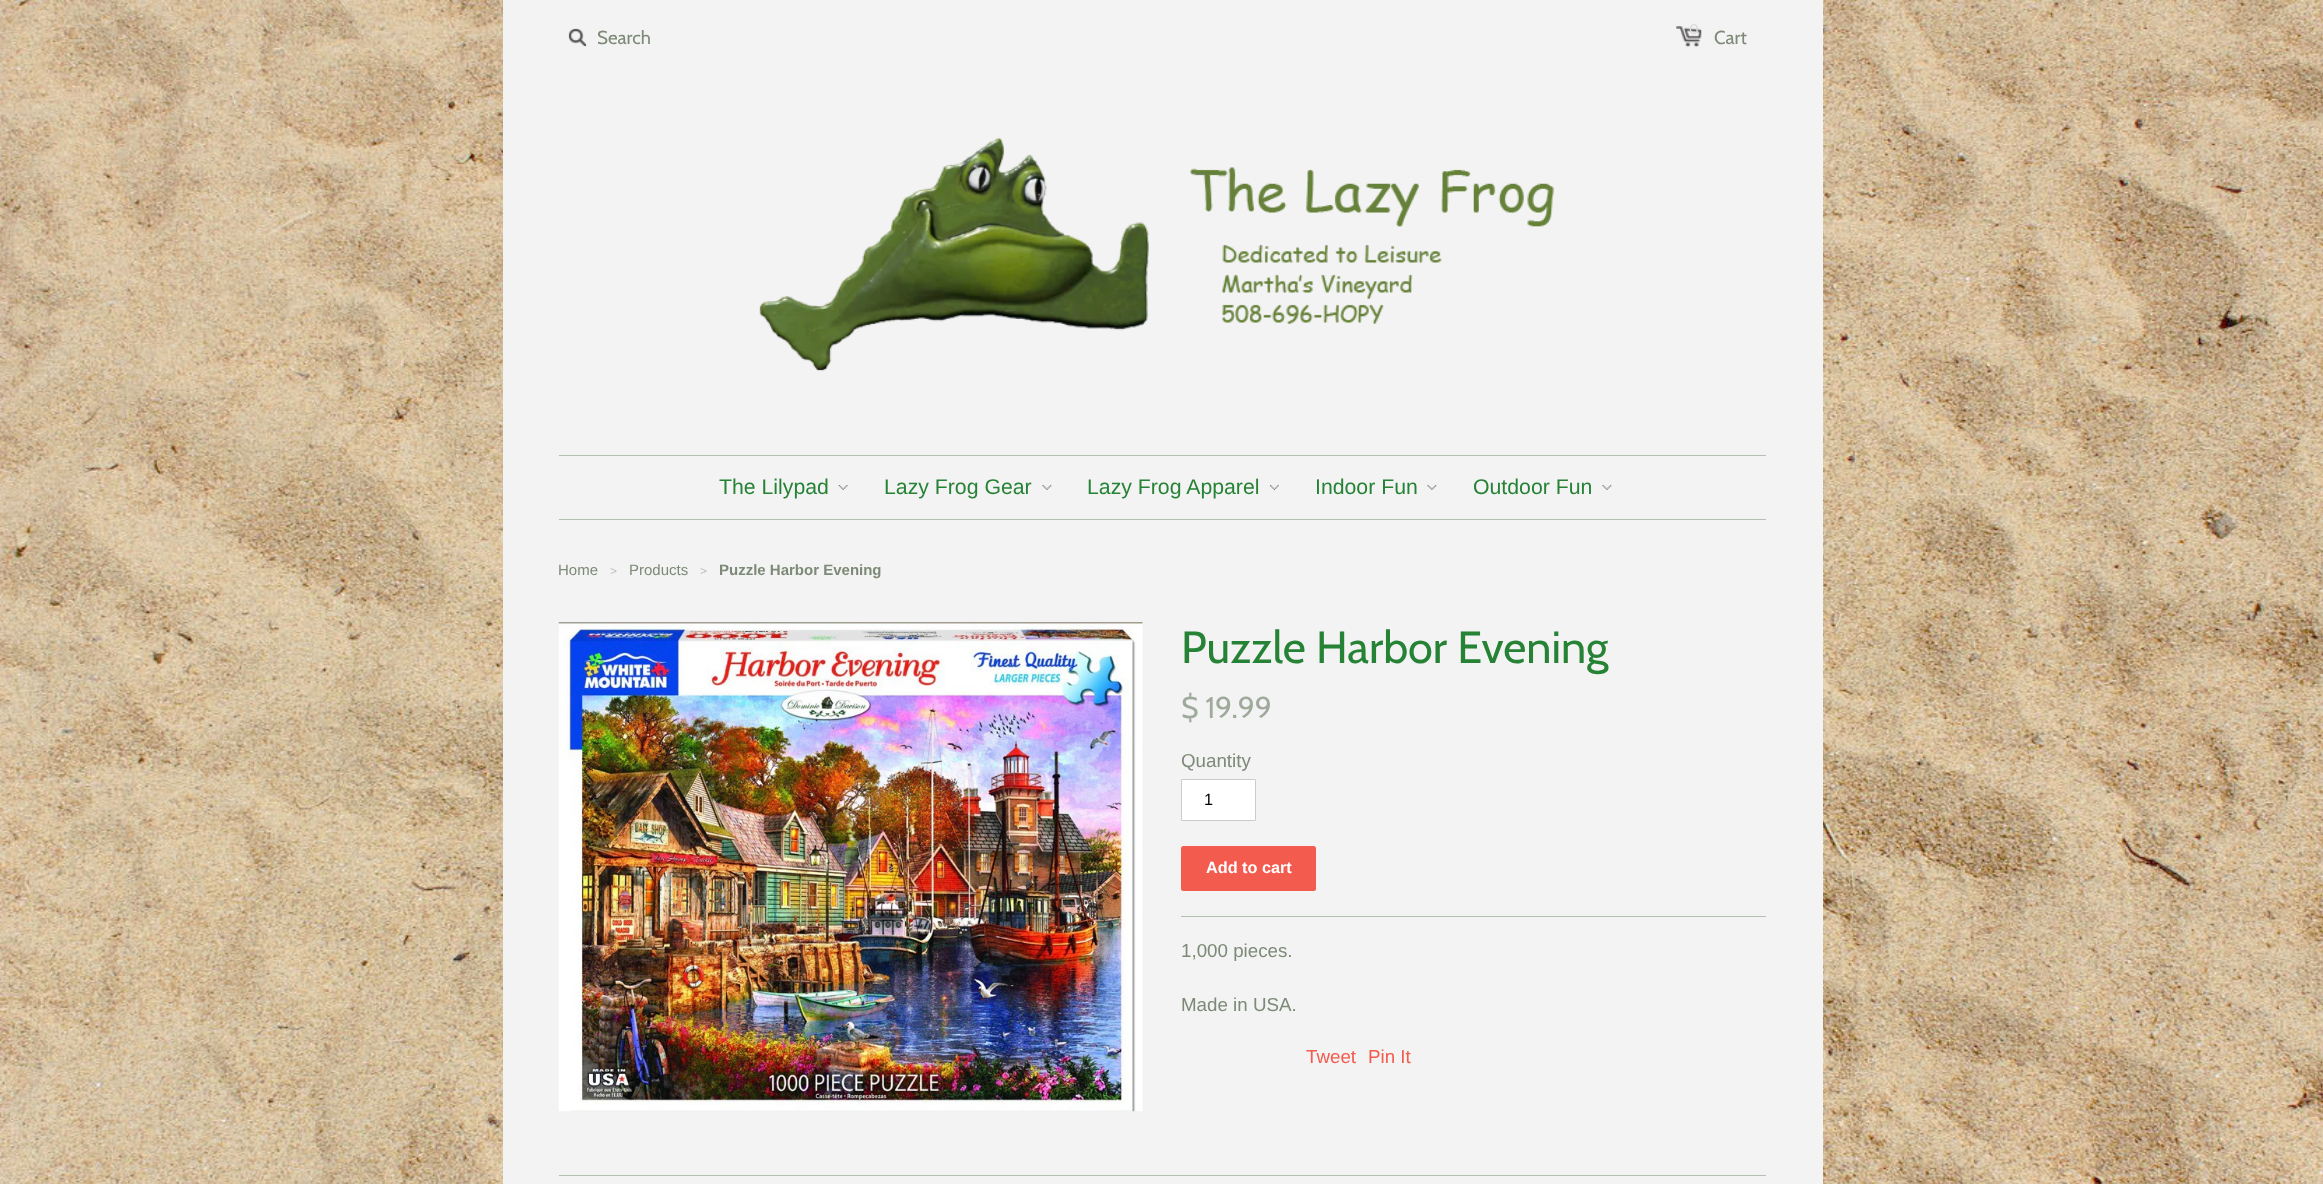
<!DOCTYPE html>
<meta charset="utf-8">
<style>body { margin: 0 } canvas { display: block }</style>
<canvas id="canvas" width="2323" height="1184"></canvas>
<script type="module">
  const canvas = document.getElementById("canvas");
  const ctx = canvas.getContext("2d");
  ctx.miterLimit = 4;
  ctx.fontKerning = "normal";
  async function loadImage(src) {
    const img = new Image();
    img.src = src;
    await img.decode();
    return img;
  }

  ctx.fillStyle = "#ffffff";
  ctx.fillRect(0, 0, 2323, 1184);
  ctx.drawImage(await loadImage("img1.png"), 0, 0, 2323, 1184);
  ctx.fillStyle = "#f3f3f3";
  ctx.fillRect(503, 0, 1320, 1184);
  ctx.drawImage(await loadImage("img2.png"), 568, 28, 19, 19);
  ctx.font = "18.75px Cabin";
  ctx.fillStyle = "#7d8a77";
  ctx.fillText("Search", 597, 44);
  ctx.drawImage(await loadImage("img3.png"), 1676, 26, 26, 21);
  ctx.font = "14px Cabin";
  ctx.fillStyle = "#dbdada";
  ctx.fillText("0", 1689, 34);
  ctx.font = "18.75px Cabin";
  ctx.fillStyle = "#7d8a77";
  ctx.fillText("Cart", 1714, 44);
  ctx.drawImage(await loadImage("img4.png"), 759, 137, 795, 234);
  ctx.fillStyle = "#b2c2ae";
  ctx.fillRect(559, 455, 1207, 1);
  ctx.fillRect(559, 519, 1207, 1);
  ctx.drawImage(await loadImage("img5.png"), 838, 485, 10, 5);
  ctx.font = "21.25px Liberation Sans";
  ctx.fillStyle = "#268235";
  ctx.fillText("The Lilypad", 719, 494);
  ctx.drawImage(await loadImage("img6.png"), 1042, 485, 10, 5);
  ctx.fillText("Lazy Frog Gear", 884, 494);
  ctx.drawImage(await loadImage("img7.png"), 1270, 485, 9, 5);
  ctx.fillText("Lazy Frog Apparel", 1087, 494);
  ctx.drawImage(await loadImage("img8.png"), 1427, 485, 10, 5);
  ctx.fillText("Indoor Fun", 1315, 494);
  ctx.drawImage(await loadImage("img8.png"), 1602, 485, 10, 5);
  ctx.fillText("Outdoor Fun", 1473, 494);
  ctx.font = "15px Liberation Sans";
  ctx.fillStyle = "#7d8a77";
  ctx.fillText("Home", 558, 575);
  ctx.font = "12px Liberation Sans";
  ctx.fillStyle = "#b8bfb5";
  ctx.fillText(">", 610, 575);
  ctx.font = "15px Liberation Sans";
  ctx.fillStyle = "#7d8a77";
  ctx.fillText("Products", 629, 575);
  ctx.font = "12px Liberation Sans";
  ctx.fillStyle = "#b8bfb5";
  ctx.fillText(">", 700, 575);
  ctx.font = "bold 15px Liberation Sans";
  ctx.fillStyle = "#7d8a77";
  ctx.fillText("Puzzle Harbor Evening", 719, 575);
  ctx.drawImage(await loadImage("img9.png"), 558, 622, 585, 490);
  ctx.font = "45px Cabin";
  ctx.fillStyle = "#268235";
  ctx.fillText("Puzzle Harbor Evening", 1181, 663);
  ctx.font = "30px Cabin";
  ctx.fillStyle = "#a0aa9c";
  ctx.fillText("$ 19.99", 1181, 718);
  ctx.fillStyle = "#b2c2ae";
  ctx.fillRect(1181, 916, 585, 1);
  ctx.font = "18.75px Liberation Sans";
  ctx.fillStyle = "#7d8a77";
  ctx.fillText("Quantity", 1181, 767);
  ctx.fillStyle = "#ffffff";
  ctx.beginPath();
  ctx.roundRect(1181.5, 779.5, 74, 41, 0.5);
  ctx.fill();
  ctx.strokeStyle = "#cccccc";
  ctx.stroke();
  ctx.font = "16.25px Liberation Sans";
  ctx.fillStyle = "#000000";
  ctx.fillText("1", 1204, 805);
  ctx.fillStyle = "#f45b4f";
  ctx.beginPath();
  ctx.roundRect(1181, 846, 135, 45, 2.5);
  ctx.fill();
  ctx.font = "bold 16.25px Liberation Sans";
  ctx.fillStyle = "#ffffff";
  ctx.fillText("Add to cart", 1206, 873);
  ctx.font = "18.75px Liberation Sans";
  ctx.fillStyle = "#7d8a77";
  ctx.fillText("1,000 pieces.", 1181, 957);
  ctx.fillText("Made in USA.", 1181, 1011);
  ctx.fillStyle = "#f45b4f";
  ctx.fillText("Tweet", 1306, 1063);
  ctx.fillText("Pin It", 1368, 1063);
  ctx.fillStyle = "#b2c2ae";
  ctx.fillRect(559, 1175, 1207, 1);
</script>
